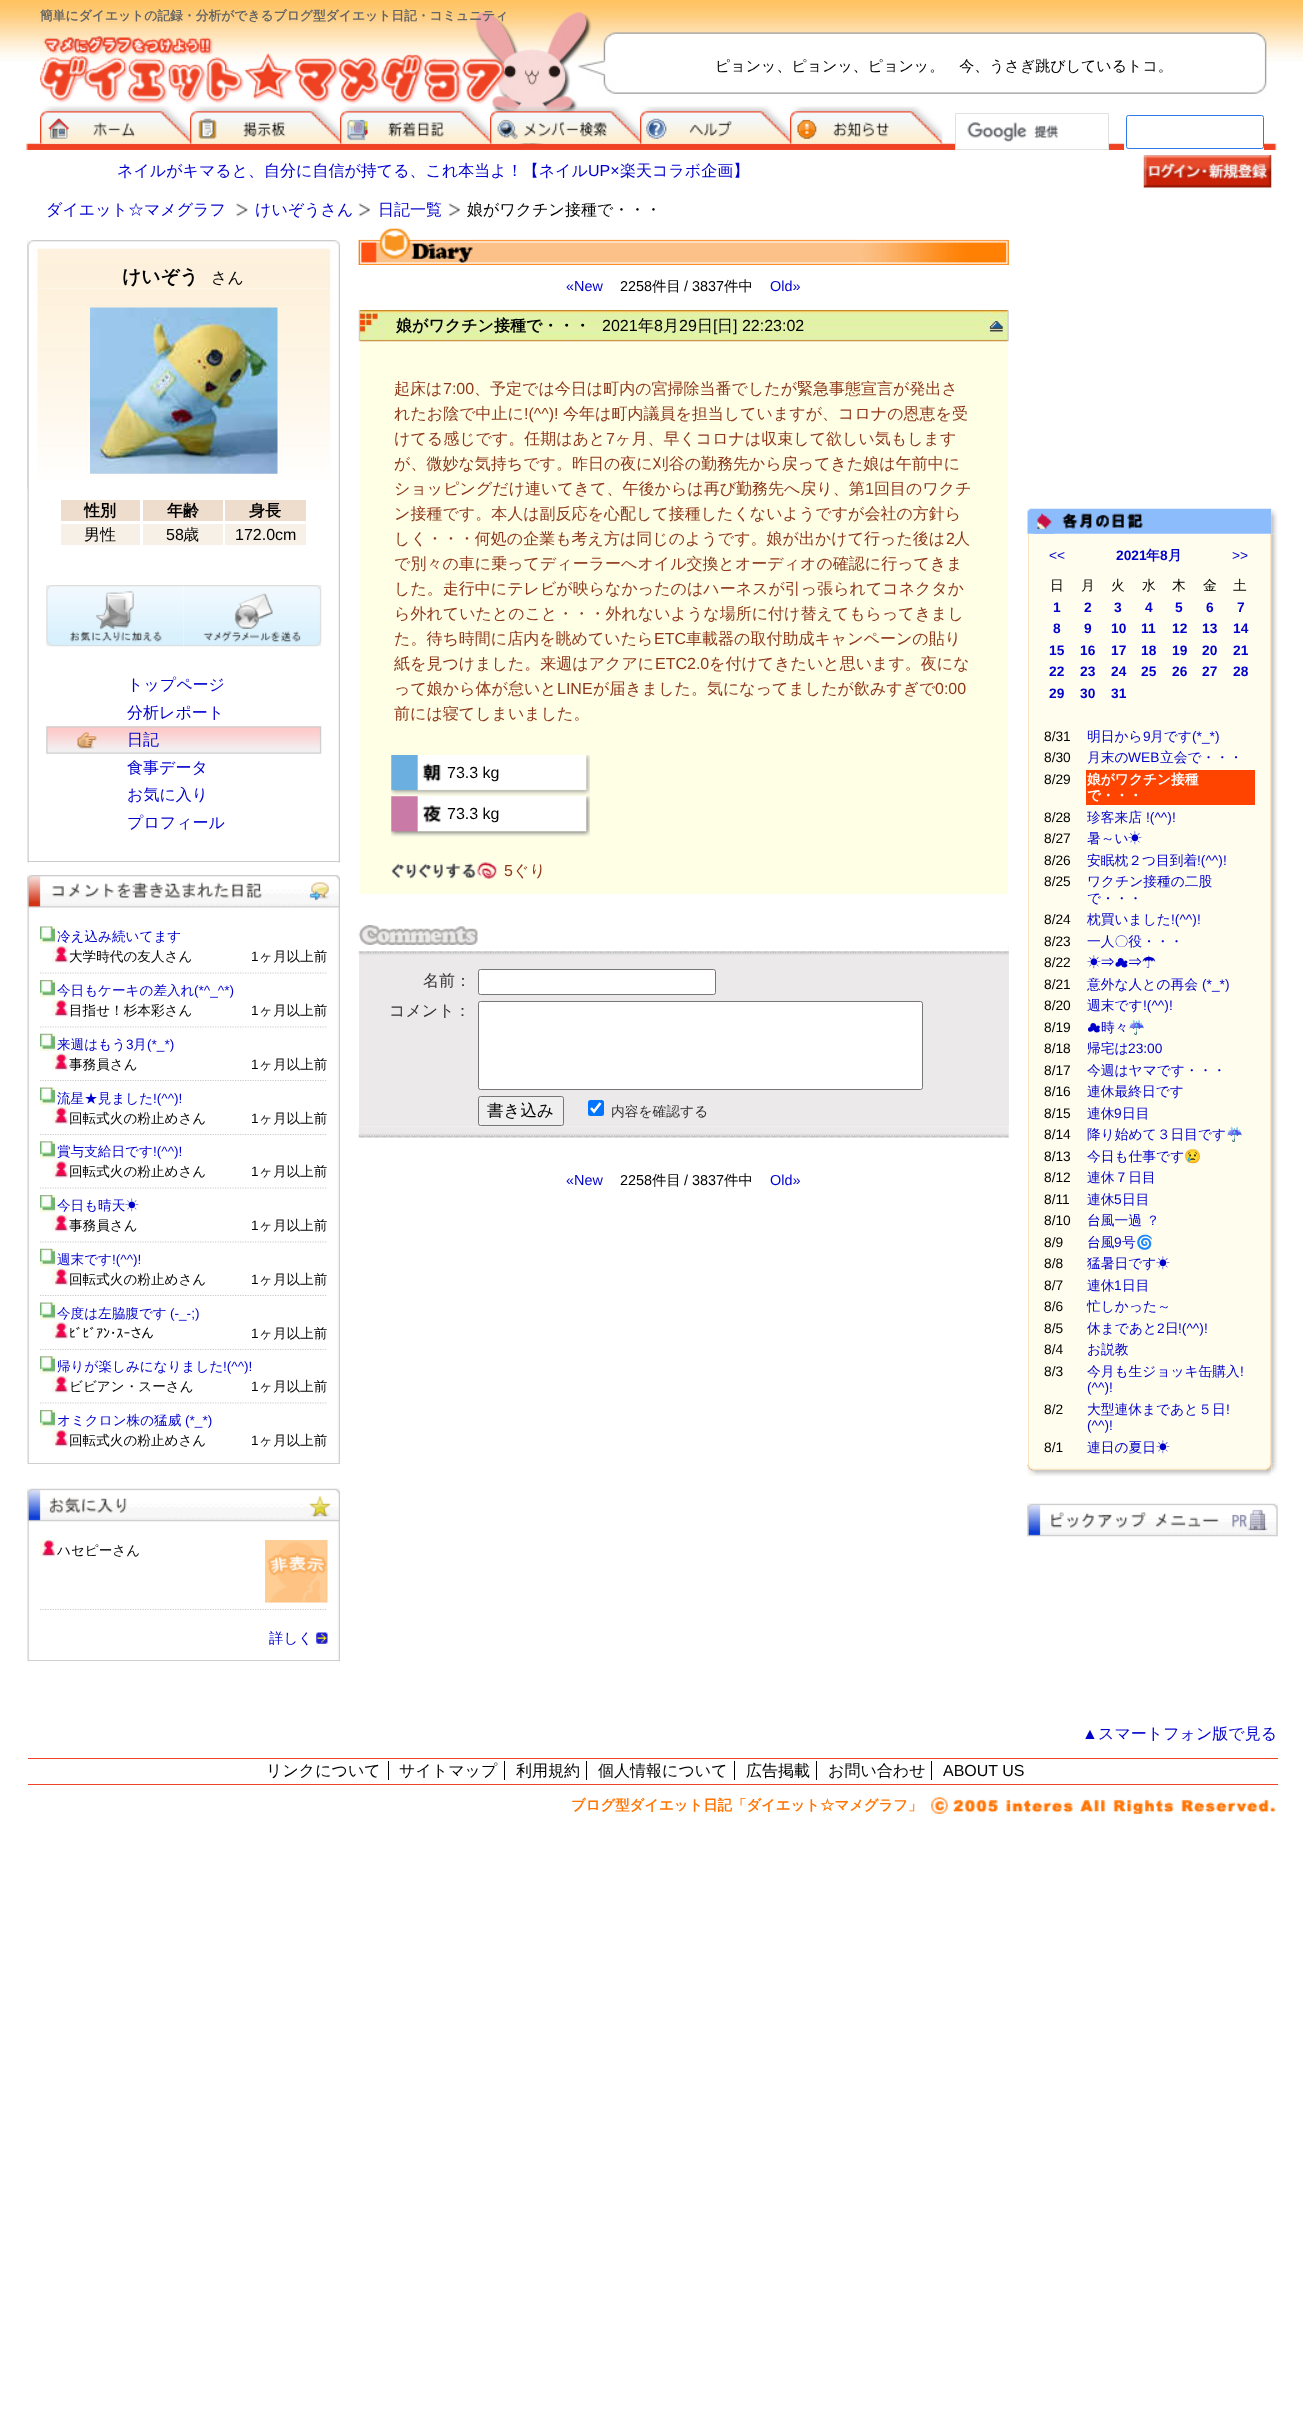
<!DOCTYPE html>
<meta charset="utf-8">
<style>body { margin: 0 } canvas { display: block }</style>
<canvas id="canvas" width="1303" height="2413"></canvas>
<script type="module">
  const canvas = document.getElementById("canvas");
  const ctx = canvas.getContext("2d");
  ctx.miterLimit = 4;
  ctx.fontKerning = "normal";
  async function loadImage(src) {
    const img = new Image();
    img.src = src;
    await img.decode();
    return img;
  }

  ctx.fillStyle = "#ffffff";
  ctx.fillRect(0, 0, 1303, 2413);
  ctx.drawImage(await loadImage("img1.png"), 0, 0, 1303, 61);
  ctx.drawImage(await loadImage("img2.png"), 26, 12, 1251, 138);
  ctx.font = "bold 12.8px WenQuanYi Zen Hei";
  ctx.fillStyle = "#666666";
  ctx.fillText("簡単にダイエットの記録・分析ができるブログ型ダイエット日記・コミュニティ", 40, 20);
  ctx.drawImage(await loadImage("img3.png"), 40, 34, 465, 73);
  ctx.font = "500 15px WenQuanYi Zen Hei";
  ctx.fillStyle = "#000000";
  ctx.fillText("ピョンッ、ピョンッ、ピョンッ。　今、うさぎ跳びしているトコ。", 715, 71);
  ctx.drawImage(await loadImage("img4.png"), 40, 106, 150, 38);
  ctx.drawImage(await loadImage("img5.png"), 190, 106, 150, 38);
  ctx.drawImage(await loadImage("img6.png"), 340, 106, 150, 38);
  ctx.drawImage(await loadImage("img7.png"), 490, 106, 150, 38);
  ctx.drawImage(await loadImage("img8.png"), 640, 106, 150, 38);
  ctx.drawImage(await loadImage("img9.png"), 790, 106, 153, 38);
  ctx.fillStyle = "#ffffff";
  ctx.fillRect(956, 143, 152, 6);
  ctx.strokeStyle = "#dfe1e5";
  ctx.strokeRect(955.5, 113.5, 153, 36);
  ctx.drawImage(await loadImage("img10.png"), 967, 122, 92, 20);
  ctx.fillRect(1124, 143, 140, 7);
  ctx.beginPath();
  ctx.roundRect(1126.5, 115.5, 137, 33, 2);
  ctx.strokeStyle = "#3079ed";
  ctx.stroke();
  ctx.font = "500 16px WenQuanYi Zen Hei";
  ctx.fillStyle = "#0000cc";
  ctx.fillText("ネイルがキマると、自分に自信が持てる、これ本当よ！【ネイル", 117, 176);
  ctx.font = "16px Liberation Sans";
  ctx.fillText("UP×", 588, 176);
  ctx.font = "500 16px WenQuanYi Zen Hei";
  ctx.fillText("楽天コラボ企画】", 620, 176);
  ctx.drawImage(await loadImage("img11.png"), 1143, 155, 129, 33);
  ctx.fillText("ダイエット☆マメグラフ", 46, 215);
  ctx.drawImage(await loadImage("img12.png"), 236, 203, 12, 14);
  ctx.fillText("けいぞうさん", 255, 215);
  ctx.drawImage(await loadImage("img13.png"), 358, 203, 12, 14);
  ctx.fillText("日記一覧", 378, 215);
  ctx.drawImage(await loadImage("img14.png"), 448, 203, 12, 14);
  ctx.fillStyle = "#000000";
  ctx.fillText("娘がワクチン接種で・・・", 467, 215);
  ctx.drawImage(await loadImage("img15.png"), 27, 240, 313, 623);
  ctx.fillStyle = "#cccccc";
  ctx.fillRect(28, 861, 312, 1);
  ctx.drawImage(await loadImage("img16.png"), 27, 240, 313, 49);
  ctx.font = "bold 18.75px WenQuanYi Zen Hei";
  ctx.fillStyle = "#000000";
  ctx.fillText("けいぞう", 122, 283);
  ctx.font = "500 16px WenQuanYi Zen Hei";
  ctx.fillText("さん", 211, 283);
  ctx.drawImage(await loadImage("img17.png"), 27, 289, 304, 200);
  ctx.drawImage(await loadImage("img18.png"), 90, 307, 188, 167);
  ctx.fillStyle = "#eeddcc";
  ctx.fillRect(61, 500, 79, 21);
  ctx.font = "bold 16px WenQuanYi Zen Hei";
  ctx.fillStyle = "#000000";
  ctx.fillText("性別", 84, 516);
  ctx.fillStyle = "#eeddcc";
  ctx.fillRect(143, 500, 80, 21);
  ctx.fillStyle = "#000000";
  ctx.fillText("年齢", 167, 516);
  ctx.fillStyle = "#eeddcc";
  ctx.fillRect(225, 500, 81, 21);
  ctx.fillStyle = "#000000";
  ctx.fillText("身長", 249, 516);
  ctx.fillStyle = "#f6f0e7";
  ctx.fillRect(61, 524, 79, 21);
  ctx.font = "500 16px WenQuanYi Zen Hei";
  ctx.fillStyle = "#000000";
  ctx.fillText("男性", 84, 540);
  ctx.fillStyle = "#f6f0e7";
  ctx.fillRect(143, 524, 80, 21);
  ctx.font = "16px Liberation Sans";
  ctx.fillStyle = "#000000";
  ctx.fillText("58", 166, 540);
  ctx.font = "500 16px WenQuanYi Zen Hei";
  ctx.fillText("歳", 183, 540);
  ctx.fillStyle = "#f6f0e7";
  ctx.fillRect(225, 524, 81, 21);
  ctx.font = "16px Liberation Sans";
  ctx.fillStyle = "#000000";
  ctx.fillText("172.0cm", 235, 540);
  ctx.drawImage(await loadImage("img19.png"), 46, 585, 138, 62);
  ctx.drawImage(await loadImage("img20.png"), 184, 585, 138, 62);
  ctx.font = "500 16px WenQuanYi Zen Hei";
  ctx.fillStyle = "#0000cc";
  ctx.fillText("トップページ", 127, 690);
  ctx.fillText("分析レポート", 127, 718);
  ctx.drawImage(await loadImage("img21.png"), 46, 726, 276, 28);
  ctx.fillText("日記", 127, 745);
  ctx.fillText("食事データ", 127, 773);
  ctx.fillText("お気に入り", 127, 800);
  ctx.fillText("プロフィール", 127, 828);
  ctx.drawImage(await loadImage("img22.png"), 27, 875, 313, 589);
  ctx.fillStyle = "#cfcfcf";
  ctx.fillRect(28, 1463, 312, 1);
  ctx.drawImage(await loadImage("img23.png"), 27, 875, 313, 33);
  ctx.drawImage(await loadImage("img24.png"), 40, 926, 15, 18);
  ctx.font = "500 13.6px WenQuanYi Zen Hei";
  ctx.fillStyle = "#0000cc";
  ctx.fillText("冷え込み続いてます", 57, 941);
  ctx.beginPath();
  ctx.moveTo(40, 973);
  ctx.lineTo(327.5, 973);
  ctx.strokeStyle = "#cccccc";
  ctx.lineWidth = 1.2;
  ctx.setLineDash([1.25, 1.25]);
  ctx.stroke();
  ctx.drawImage(await loadImage("img25.png"), 52, 946, 16, 17);
  ctx.fillStyle = "#000000";
  ctx.fillText("大学時代の友人さん", 69, 961);
  ctx.font = "13.6px Liberation Sans";
  ctx.fillText("1", 251, 961);
  ctx.font = "500 13.6px WenQuanYi Zen Hei";
  ctx.fillText("ヶ月以上前", 259, 961);
  ctx.drawImage(await loadImage("img26.png"), 40, 980, 15, 18);
  ctx.fillStyle = "#0000cc";
  ctx.fillText("今日もケーキの差入れ", 57, 995);
  ctx.font = "13.6px Liberation Sans";
  ctx.fillText("(*^_^*)", 194, 995);
  ctx.beginPath();
  ctx.moveTo(40, 1027);
  ctx.lineTo(327.5, 1027);
  ctx.stroke();
  ctx.drawImage(await loadImage("img27.png"), 52, 1000, 16, 17);
  ctx.font = "500 13.6px WenQuanYi Zen Hei";
  ctx.fillStyle = "#000000";
  ctx.fillText("目指せ！杉本彩さん", 69, 1015);
  ctx.font = "13.6px Liberation Sans";
  ctx.fillText("1", 251, 1015);
  ctx.font = "500 13.6px WenQuanYi Zen Hei";
  ctx.fillText("ヶ月以上前", 259, 1015);
  ctx.drawImage(await loadImage("img28.png"), 40, 1033, 15, 19);
  ctx.fillStyle = "#0000cc";
  ctx.fillText("来週はもう", 57, 1049);
  ctx.font = "13.6px Liberation Sans";
  ctx.fillText("3", 126, 1049);
  ctx.font = "500 13.6px WenQuanYi Zen Hei";
  ctx.fillText("月", 133, 1049);
  ctx.font = "13.6px Liberation Sans";
  ctx.fillText("(*_*)", 147, 1049);
  ctx.beginPath();
  ctx.moveTo(40, 1080.5);
  ctx.lineTo(327.5, 1080.5);
  ctx.stroke();
  ctx.drawImage(await loadImage("img29.png"), 52, 1053, 16, 18);
  ctx.font = "500 13.6px WenQuanYi Zen Hei";
  ctx.fillStyle = "#000000";
  ctx.fillText("事務員さん", 69, 1069);
  ctx.font = "13.6px Liberation Sans";
  ctx.fillText("1", 251, 1069);
  ctx.font = "500 13.6px WenQuanYi Zen Hei";
  ctx.fillText("ヶ月以上前", 259, 1069);
  ctx.drawImage(await loadImage("img30.png"), 40, 1087, 15, 18);
  ctx.fillStyle = "#0000cc";
  ctx.fillText("流星★見ました", 57, 1103);
  ctx.font = "13.6px Liberation Sans";
  ctx.fillText("!(^^)!", 153, 1103);
  ctx.beginPath();
  ctx.moveTo(40, 1134.5);
  ctx.lineTo(327.5, 1134.5);
  ctx.stroke();
  ctx.drawImage(await loadImage("img31.png"), 52, 1107, 16, 17);
  ctx.font = "500 13.6px WenQuanYi Zen Hei";
  ctx.fillStyle = "#000000";
  ctx.fillText("回転式火の粉止めさん", 69, 1123);
  ctx.font = "13.6px Liberation Sans";
  ctx.fillText("1", 251, 1123);
  ctx.font = "500 13.6px WenQuanYi Zen Hei";
  ctx.fillText("ヶ月以上前", 259, 1123);
  ctx.drawImage(await loadImage("img32.png"), 40, 1141, 15, 18);
  ctx.fillStyle = "#0000cc";
  ctx.fillText("賞与支給日です", 57, 1156);
  ctx.font = "13.6px Liberation Sans";
  ctx.fillText("!(^^)!", 153, 1156);
  ctx.beginPath();
  ctx.moveTo(40, 1188);
  ctx.lineTo(327.5, 1188);
  ctx.stroke();
  ctx.drawImage(await loadImage("img33.png"), 52, 1161, 16, 17);
  ctx.font = "500 13.6px WenQuanYi Zen Hei";
  ctx.fillStyle = "#000000";
  ctx.fillText("回転式火の粉止めさん", 69, 1176);
  ctx.font = "13.6px Liberation Sans";
  ctx.fillText("1", 251, 1176);
  ctx.font = "500 13.6px WenQuanYi Zen Hei";
  ctx.fillText("ヶ月以上前", 259, 1176);
  ctx.drawImage(await loadImage("img26.png"), 40, 1195, 15, 18);
  ctx.fillStyle = "#0000cc";
  ctx.fillText("今日も晴天", 57, 1210);
  ctx.font = "13.6px IPAPGothic";
  ctx.fillText("☀", 125, 1210);
  ctx.beginPath();
  ctx.moveTo(40, 1242);
  ctx.lineTo(327.5, 1242);
  ctx.stroke();
  ctx.drawImage(await loadImage("img27.png"), 52, 1215, 16, 17);
  ctx.font = "500 13.6px WenQuanYi Zen Hei";
  ctx.fillStyle = "#000000";
  ctx.fillText("事務員さん", 69, 1230);
  ctx.font = "13.6px Liberation Sans";
  ctx.fillText("1", 251, 1230);
  ctx.font = "500 13.6px WenQuanYi Zen Hei";
  ctx.fillText("ヶ月以上前", 259, 1230);
  ctx.drawImage(await loadImage("img28.png"), 40, 1248, 15, 19);
  ctx.fillStyle = "#0000cc";
  ctx.fillText("週末です", 57, 1264);
  ctx.font = "13.6px Liberation Sans";
  ctx.fillText("!(^^)!", 112, 1264);
  ctx.beginPath();
  ctx.moveTo(40, 1295.5);
  ctx.lineTo(327.5, 1295.5);
  ctx.stroke();
  ctx.drawImage(await loadImage("img29.png"), 52, 1268, 16, 18);
  ctx.font = "500 13.6px WenQuanYi Zen Hei";
  ctx.fillStyle = "#000000";
  ctx.fillText("回転式火の粉止めさん", 69, 1284);
  ctx.font = "13.6px Liberation Sans";
  ctx.fillText("1", 251, 1284);
  ctx.font = "500 13.6px WenQuanYi Zen Hei";
  ctx.fillText("ヶ月以上前", 259, 1284);
  ctx.drawImage(await loadImage("img30.png"), 40, 1302, 15, 18);
  ctx.fillStyle = "#0000cc";
  ctx.fillText("今度は左脇腹です", 57, 1318);
  ctx.font = "13.6px Liberation Sans";
  ctx.fillText("(-_-;)", 170, 1318);
  ctx.beginPath();
  ctx.moveTo(40, 1349.5);
  ctx.lineTo(327.5, 1349.5);
  ctx.stroke();
  ctx.drawImage(await loadImage("img31.png"), 52, 1322, 16, 17);
  ctx.font = "13.6px IPAPGothic";
  ctx.fillStyle = "#000000";
  ctx.fillText("ﾋﾞﾋﾞｱﾝ･ｽｰさん", 69, 1338);
  ctx.font = "13.6px Liberation Sans";
  ctx.fillText("1", 251, 1338);
  ctx.font = "500 13.6px WenQuanYi Zen Hei";
  ctx.fillText("ヶ月以上前", 259, 1338);
  ctx.drawImage(await loadImage("img32.png"), 40, 1356, 15, 18);
  ctx.fillStyle = "#0000cc";
  ctx.fillText("帰りが楽しみになりました", 57, 1371);
  ctx.font = "13.6px Liberation Sans";
  ctx.fillText("!(^^)!", 223, 1371);
  ctx.beginPath();
  ctx.moveTo(40, 1403);
  ctx.lineTo(327.5, 1403);
  ctx.stroke();
  ctx.drawImage(await loadImage("img25.png"), 52, 1376, 16, 17);
  ctx.font = "500 13.6px WenQuanYi Zen Hei";
  ctx.fillStyle = "#000000";
  ctx.fillText("ビビアン・スーさん", 69, 1391);
  ctx.font = "13.6px Liberation Sans";
  ctx.fillText("1", 251, 1391);
  ctx.font = "500 13.6px WenQuanYi Zen Hei";
  ctx.fillText("ヶ月以上前", 259, 1391);
  ctx.drawImage(await loadImage("img26.png"), 40, 1410, 15, 18);
  ctx.fillStyle = "#0000cc";
  ctx.fillText("オミクロン株の猛威", 57, 1425);
  ctx.font = "13.6px Liberation Sans";
  ctx.fillText("(*_*)", 185, 1425);
  ctx.drawImage(await loadImage("img27.png"), 52, 1430, 16, 17);
  ctx.font = "500 13.6px WenQuanYi Zen Hei";
  ctx.fillStyle = "#000000";
  ctx.fillText("回転式火の粉止めさん", 69, 1445);
  ctx.font = "13.6px Liberation Sans";
  ctx.fillText("1", 251, 1445);
  ctx.font = "500 13.6px WenQuanYi Zen Hei";
  ctx.fillText("ヶ月以上前", 259, 1445);
  ctx.drawImage(await loadImage("img34.png"), 27, 1488, 313, 174);
  ctx.fillStyle = "#cfcfcf";
  ctx.fillRect(28, 1660, 312, 1);
  ctx.drawImage(await loadImage("img35.png"), 27, 1488, 313, 34);
  ctx.beginPath();
  ctx.moveTo(40, 1609.5);
  ctx.lineTo(327.5, 1609.5);
  ctx.stroke();
  ctx.drawImage(await loadImage("img36.png"), 40, 1540, 15, 17);
  ctx.fillStyle = "#000000";
  ctx.fillText("ハセピーさん", 57, 1555);
  ctx.drawImage(await loadImage("img37.png"), 265, 1540, 63, 63);
  ctx.font = "500 14.4px WenQuanYi Zen Hei";
  ctx.fillStyle = "#0000cc";
  ctx.fillText("詳しく", 269, 1643);
  ctx.drawImage(await loadImage("img38.png"), 316, 1632, 12, 12);
  ctx.drawImage(await loadImage("img39.png"), 358, 239, 651, 26);
  ctx.drawImage(await loadImage("img40.png"), 358, 228, 116, 37);
  ctx.drawImage(await loadImage("img41.png"), 856, 239, 153, 26);
  ctx.font = "14.4px Liberation Sans";
  ctx.fillText("«New", 566, 291);
  ctx.fillStyle = "#000000";
  ctx.fillText("2258", 620, 291);
  ctx.font = "500 14.4px WenQuanYi Zen Hei";
  ctx.fillText("件目", 652, 291);
  ctx.font = "14.4px Liberation Sans";
  ctx.fillText("/ 3837", 684, 291);
  ctx.font = "500 14.4px WenQuanYi Zen Hei";
  ctx.fillText("件中", 724, 291);
  ctx.font = "14.4px Liberation Sans";
  ctx.fillStyle = "#0000cc";
  ctx.fillText("Old»", 770, 291);
  ctx.fillStyle = "#ffffe5";
  ctx.fillRect(360, 341, 648, 553);
  ctx.drawImage(await loadImage("img42.png"), 358, 310, 651, 32);
  ctx.font = "bold 16px WenQuanYi Zen Hei";
  ctx.fillStyle = "#000000";
  ctx.fillText("娘がワクチン接種で・・・", 396, 331);
  ctx.font = "16px Liberation Sans";
  ctx.fillText("2021", 602, 331);
  ctx.font = "500 16px WenQuanYi Zen Hei";
  ctx.fillText("年", 638, 331);
  ctx.font = "16px Liberation Sans";
  ctx.fillText("8", 654, 331);
  ctx.font = "500 16px WenQuanYi Zen Hei";
  ctx.fillText("月", 663, 331);
  ctx.font = "16px Liberation Sans";
  ctx.fillText("29", 679, 331);
  ctx.font = "500 16px WenQuanYi Zen Hei";
  ctx.fillText("日", 697, 331);
  ctx.font = "16px Liberation Sans";
  ctx.fillText("[", 713, 331);
  ctx.font = "500 16px WenQuanYi Zen Hei";
  ctx.fillText("日", 717, 331);
  ctx.font = "16px Liberation Sans";
  ctx.fillText("] 22:23:02", 733, 331);
  ctx.drawImage(await loadImage("img43.png"), 989, 321, 14, 11);
  ctx.font = "500 16px WenQuanYi Zen Hei";
  ctx.fillStyle = "#8f381a";
  ctx.fillText("起床は", 394, 394);
  ctx.font = "16px Liberation Sans";
  ctx.fillText("7:00", 443, 394);
  ctx.font = "500 16px WenQuanYi Zen Hei";
  ctx.fillText("、予定では今日は町内の宮掃除当番でしたが緊急事態宣言が発出さ", 474, 394);
  ctx.fillText("れたお陰で中止に", 394, 419);
  ctx.font = "16px Liberation Sans";
  ctx.fillText("!(^^)!", 524, 419);
  ctx.font = "500 16px WenQuanYi Zen Hei";
  ctx.fillText("今年は町内議員を担当していますが、コロナの恩恵を受", 563, 419);
  ctx.fillText("けてる感じです。任期はあと", 394, 444);
  ctx.font = "16px Liberation Sans";
  ctx.fillText("7", 606, 444);
  ctx.font = "500 16px WenQuanYi Zen Hei";
  ctx.fillText("ヶ月、早くコロナは収束して欲しい気もします", 615, 444);
  ctx.fillText("が、微妙な気持ちです。昨日の夜に刈谷の勤務先から戻ってきた娘は午前中に", 394, 469);
  ctx.fillText("ショッピングだけ連いてきて、午後からは再び勤務先へ戻り、第", 394, 494);
  ctx.font = "16px Liberation Sans";
  ctx.fillText("1", 865, 494);
  ctx.font = "500 16px WenQuanYi Zen Hei";
  ctx.fillText("回目のワクチ", 874, 494);
  ctx.fillText("ン接種です。本人は副反応を心配して接種したくないようですが会社の方針ら", 394, 519);
  ctx.fillText("しく・・・何処の企業も考え方は同じのようです。娘が出かけて行った後は", 394, 544);
  ctx.font = "16px Liberation Sans";
  ctx.fillText("2", 946, 544);
  ctx.font = "500 16px WenQuanYi Zen Hei";
  ctx.fillText("人", 954, 544);
  ctx.fillText("で別々の車に乗ってディーラーへオイル交換とオーディオの確認に行ってきま", 394, 569);
  ctx.fillText("した。走行中にテレビが映らなかったのはハーネスが引っ張られてコネクタか", 394, 594);
  ctx.fillText("ら外れていたとのこと・・・外れないような場所に付け替えてもらってきまし", 394, 619);
  ctx.fillText("た。待ち時間に店内を眺めていたら", 394, 644);
  ctx.font = "16px Liberation Sans";
  ctx.fillText("ETC", 654, 644);
  ctx.font = "500 16px WenQuanYi Zen Hei";
  ctx.fillText("車載器の取付助成キャンペーンの貼り", 686, 644);
  ctx.fillText("紙を見つけました。来週はアクアに", 394, 669);
  ctx.font = "16px Liberation Sans";
  ctx.fillText("ETC2.0", 655, 669);
  ctx.font = "500 16px WenQuanYi Zen Hei";
  ctx.fillText("を付けてきたいと思います。夜にな", 709, 669);
  ctx.fillText("って娘から体が怠いと", 394, 694);
  ctx.font = "16px Liberation Sans";
  ctx.fillText("LINE", 557, 694);
  ctx.font = "500 16px WenQuanYi Zen Hei";
  ctx.fillText("が届きました。気になってましたが飲みすぎで", 593, 694);
  ctx.font = "16px Liberation Sans";
  ctx.fillText("0:00", 935, 694);
  ctx.font = "500 16px WenQuanYi Zen Hei";
  ctx.fillText("前には寝てしまいました。", 394, 719);
  ctx.drawImage(await loadImage("img44.png"), 391, 755, 199, 41);
  ctx.font = "16px Liberation Sans";
  ctx.fillStyle = "#000000";
  ctx.fillText("73.3 kg", 447, 778);
  ctx.drawImage(await loadImage("img45.png"), 391, 796, 199, 41);
  ctx.fillText("73.3 kg", 447, 819);
  ctx.drawImage(await loadImage("img46.png"), 391, 862, 106, 17);
  ctx.fillStyle = "#8f381a";
  ctx.fillText("5", 504, 876);
  ctx.font = "500 16px WenQuanYi Zen Hei";
  ctx.fillText("ぐり", 513, 876);
  ctx.drawImage(await loadImage("img47.png"), 358, 925, 120, 20);
  ctx.fillStyle = "#ebe9e9";
  ctx.fillRect(359, 945, 650, 181);
  ctx.drawImage(await loadImage("img48.png"), 358, 945, 651, 10);
  ctx.fillStyle = "#333333";
  ctx.fillText("名前：", 423, 986);
  ctx.fillStyle = "#ffffff";
  ctx.beginPath();
  ctx.roundRect(478.5, 969.5, 237, 25, 2);
  ctx.fill();
  ctx.strokeStyle = "#767676";
  ctx.lineWidth = 1;
  ctx.setLineDash([]);
  ctx.stroke();
  ctx.fillStyle = "#333333";
  ctx.fillText("コメント：", 389, 1016);
  ctx.fillStyle = "#ffffff";
  ctx.beginPath();
  ctx.roundRect(478.5, 1001.5, 444, 88, 2);
  ctx.fill();
  ctx.stroke();
  ctx.fillStyle = "#efefef";
  ctx.beginPath();
  ctx.roundRect(478.5, 1096.5, 85, 29, 2);
  ctx.fill();
  ctx.stroke();
  ctx.font = "500 16.5px WenQuanYi Zen Hei";
  ctx.fillStyle = "#000000";
  ctx.fillText("書き込み", 487, 1116);
  ctx.fillStyle = "#0075ff";
  ctx.beginPath();
  ctx.roundRect(588, 1100, 16, 16, 2.5);
  ctx.fill();
  ctx.beginPath();
  ctx.moveTo(591, 1108);
  ctx.lineTo(594, 1111.5);
  ctx.lineTo(600.5, 1103);
  ctx.strokeStyle = "#ffffff";
  ctx.lineWidth = 2.6;
  ctx.stroke();
  ctx.font = "500 13.75px WenQuanYi Zen Hei";
  ctx.fillStyle = "#333333";
  ctx.fillText("内容を確認する", 611, 1116);
  ctx.drawImage(await loadImage("img49.png"), 358, 1126, 651, 12);
  ctx.font = "14.4px Liberation Sans";
  ctx.fillStyle = "#0000cc";
  ctx.fillText("«New", 566, 1185);
  ctx.fillStyle = "#000000";
  ctx.fillText("2258", 620, 1185);
  ctx.font = "500 14.4px WenQuanYi Zen Hei";
  ctx.fillText("件目", 652, 1185);
  ctx.font = "14.4px Liberation Sans";
  ctx.fillText("/ 3837", 684, 1185);
  ctx.font = "500 14.4px WenQuanYi Zen Hei";
  ctx.fillText("件中", 724, 1185);
  ctx.font = "14.4px Liberation Sans";
  ctx.fillStyle = "#0000cc";
  ctx.fillText("Old»", 770, 1185);
  ctx.drawImage(await loadImage("img50.png"), 1027, 508, 245, 26);
  ctx.drawImage(await loadImage("img51.png"), 1033, 513, 21, 21);
  ctx.drawImage(await loadImage("img52.png"), 1062, 513, 81, 16);
  ctx.drawImage(await loadImage("img53.png"), 1271, 509, 7, 25);
  ctx.fillStyle = "#fffdee";
  ctx.fillRect(1029, 534, 241, 930);
  ctx.fillStyle = "#fde4c0";
  ctx.fillRect(1270, 534, 1, 930);
  ctx.fillRect(1028, 534, 1, 930);
  ctx.font = "13.75px Liberation Sans";
  ctx.fillStyle = "#0000cc";
  ctx.fillText("<<", 1049, 560);
  ctx.font = "bold 13.75px Liberation Sans";
  ctx.fillText("2021", 1116, 560);
  ctx.font = "bold 13.75px WenQuanYi Zen Hei";
  ctx.fillText("年", 1146, 560);
  ctx.font = "bold 13.75px Liberation Sans";
  ctx.fillText("8", 1160, 560);
  ctx.font = "bold 13.75px WenQuanYi Zen Hei";
  ctx.fillText("月", 1168, 560);
  ctx.font = "13.75px Liberation Sans";
  ctx.fillText(">>", 1232, 560);
  ctx.font = "500 13.75px WenQuanYi Zen Hei";
  ctx.fillStyle = "#000000";
  ctx.fillText("日", 1050, 590);
  ctx.fillText("月", 1081, 590);
  ctx.fillText("火", 1111, 590);
  ctx.fillText("水", 1142, 590);
  ctx.fillText("木", 1172, 590);
  ctx.fillText("金", 1203, 590);
  ctx.fillText("土", 1233, 590);
  ctx.font = "bold 13.75px Liberation Sans";
  ctx.fillStyle = "#0000cc";
  ctx.fillText("1", 1053, 612);
  ctx.fillText("2", 1084, 612);
  ctx.fillText("3", 1114, 612);
  ctx.fillText("4", 1145, 612);
  ctx.fillText("5", 1175, 612);
  ctx.fillText("6", 1206, 612);
  ctx.fillText("7", 1237, 612);
  ctx.fillText("8", 1053, 633);
  ctx.fillText("9", 1084, 633);
  ctx.fillText("10", 1111, 633);
  ctx.fillText("11", 1141, 633);
  ctx.fillText("12", 1172, 633);
  ctx.fillText("13", 1202, 633);
  ctx.fillText("14", 1233, 633);
  ctx.fillText("15", 1049, 655);
  ctx.fillText("16", 1080, 655);
  ctx.fillText("17", 1111, 655);
  ctx.fillText("18", 1141, 655);
  ctx.fillText("19", 1172, 655);
  ctx.fillText("20", 1202, 655);
  ctx.fillText("21", 1233, 655);
  ctx.fillText("22", 1049, 676);
  ctx.fillText("23", 1080, 676);
  ctx.fillText("24", 1111, 676);
  ctx.fillText("25", 1141, 676);
  ctx.fillText("26", 1172, 676);
  ctx.fillText("27", 1202, 676);
  ctx.fillText("28", 1233, 676);
  ctx.fillText("29", 1049, 698);
  ctx.fillText("30", 1080, 698);
  ctx.fillText("31", 1111, 698);
  ctx.font = "13.75px Liberation Sans";
  ctx.fillStyle = "#000000";
  ctx.fillText("8/31", 1044, 741);
  ctx.font = "500 13.75px WenQuanYi Zen Hei";
  ctx.fillStyle = "#0000cc";
  ctx.fillText("明日から", 1087, 741);
  ctx.font = "13.75px Liberation Sans";
  ctx.fillText("9", 1143, 741);
  ctx.font = "500 13.75px WenQuanYi Zen Hei";
  ctx.fillText("月です", 1150, 741);
  ctx.font = "13.75px Liberation Sans";
  ctx.fillText("(*_*)", 1192, 741);
  ctx.fillStyle = "#000000";
  ctx.fillText("8/30", 1044, 762);
  ctx.font = "500 13.75px WenQuanYi Zen Hei";
  ctx.fillStyle = "#0000cc";
  ctx.fillText("月末の", 1087, 762);
  ctx.font = "13.75px Liberation Sans";
  ctx.fillText("WEB", 1128, 762);
  ctx.font = "500 13.75px WenQuanYi Zen Hei";
  ctx.fillText("立会で・・・", 1160, 762);
  ctx.font = "13.75px Liberation Sans";
  ctx.fillStyle = "#000000";
  ctx.fillText("8/29", 1044, 784);
  ctx.fillStyle = "#ff4400";
  ctx.fillRect(1086, 770, 169, 35);
  ctx.font = "bold 13.75px WenQuanYi Zen Hei";
  ctx.fillStyle = "#ffffff";
  ctx.fillText("娘がワクチン接種", 1087, 784);
  ctx.fillText("で・・・", 1087, 800);
  ctx.font = "13.75px Liberation Sans";
  ctx.fillStyle = "#000000";
  ctx.fillText("8/28", 1044, 822);
  ctx.font = "500 13.75px WenQuanYi Zen Hei";
  ctx.fillStyle = "#0000cc";
  ctx.fillText("珍客来店", 1087, 822);
  ctx.font = "13.75px Liberation Sans";
  ctx.fillText("!(^^)!", 1146, 822);
  ctx.fillStyle = "#000000";
  ctx.fillText("8/27", 1044, 843);
  ctx.font = "500 13.75px WenQuanYi Zen Hei";
  ctx.fillStyle = "#0000cc";
  ctx.fillText("暑～い", 1087, 843);
  ctx.font = "13.75px IPAPGothic";
  ctx.fillText("☀", 1128, 843);
  ctx.font = "13.75px Liberation Sans";
  ctx.fillStyle = "#000000";
  ctx.fillText("8/26", 1044, 865);
  ctx.font = "500 13.75px WenQuanYi Zen Hei";
  ctx.fillStyle = "#0000cc";
  ctx.fillText("安眠枕２つ目到着", 1087, 865);
  ctx.font = "13.75px Liberation Sans";
  ctx.fillText("!(^^)!", 1197, 865);
  ctx.fillStyle = "#000000";
  ctx.fillText("8/25", 1044, 886);
  ctx.font = "500 13.75px WenQuanYi Zen Hei";
  ctx.fillStyle = "#0000cc";
  ctx.fillText("ワクチン接種の二股", 1087, 886);
  ctx.fillText("で・・・", 1087, 903);
  ctx.font = "13.75px Liberation Sans";
  ctx.fillStyle = "#000000";
  ctx.fillText("8/24", 1044, 924);
  ctx.font = "500 13.75px WenQuanYi Zen Hei";
  ctx.fillStyle = "#0000cc";
  ctx.fillText("枕買いました", 1087, 924);
  ctx.font = "13.75px Liberation Sans";
  ctx.fillText("!(^^)!", 1171, 924);
  ctx.fillStyle = "#000000";
  ctx.fillText("8/23", 1044, 946);
  ctx.font = "500 13.75px WenQuanYi Zen Hei";
  ctx.fillStyle = "#0000cc";
  ctx.fillText("一人〇役・・・", 1087, 946);
  ctx.font = "13.75px Liberation Sans";
  ctx.fillStyle = "#000000";
  ctx.fillText("8/22", 1044, 967);
  ctx.font = "13.75px IPAPGothic";
  ctx.fillStyle = "#0000cc";
  ctx.fillText("☀⇒☁⇒☂", 1087, 967);
  ctx.font = "13.75px Liberation Sans";
  ctx.fillStyle = "#000000";
  ctx.fillText("8/21", 1044, 989);
  ctx.font = "500 13.75px WenQuanYi Zen Hei";
  ctx.fillStyle = "#0000cc";
  ctx.fillText("意外な人との再会", 1087, 989);
  ctx.font = "13.75px Liberation Sans";
  ctx.fillText("(*_*)", 1202, 989);
  ctx.fillStyle = "#000000";
  ctx.fillText("8/20", 1044, 1010);
  ctx.font = "500 13.75px WenQuanYi Zen Hei";
  ctx.fillStyle = "#0000cc";
  ctx.fillText("週末です", 1087, 1010);
  ctx.font = "13.75px Liberation Sans";
  ctx.fillText("!(^^)!", 1143, 1010);
  ctx.fillStyle = "#000000";
  ctx.fillText("8/19", 1044, 1032);
  ctx.font = "13.75px IPAPGothic";
  ctx.fillStyle = "#0000cc";
  ctx.fillText("☁", 1087, 1032);
  ctx.font = "500 13.75px WenQuanYi Zen Hei";
  ctx.fillText("時々", 1101, 1032);
  ctx.font = "13.75px Noto Color Emoji";
  ctx.fillText("☔", 1128, 1032);
  ctx.font = "13.75px Liberation Sans";
  ctx.fillStyle = "#000000";
  ctx.fillText("8/18", 1044, 1053);
  ctx.font = "500 13.75px WenQuanYi Zen Hei";
  ctx.fillStyle = "#0000cc";
  ctx.fillText("帰宅は", 1087, 1053);
  ctx.font = "13.75px Liberation Sans";
  ctx.fillText("23:00", 1128, 1053);
  ctx.fillStyle = "#000000";
  ctx.fillText("8/17", 1044, 1075);
  ctx.font = "500 13.75px WenQuanYi Zen Hei";
  ctx.fillStyle = "#0000cc";
  ctx.fillText("今週はヤマです・・・", 1087, 1075);
  ctx.font = "13.75px Liberation Sans";
  ctx.fillStyle = "#000000";
  ctx.fillText("8/16", 1044, 1096);
  ctx.font = "500 13.75px WenQuanYi Zen Hei";
  ctx.fillStyle = "#0000cc";
  ctx.fillText("連休最終日です", 1087, 1096);
  ctx.font = "13.75px Liberation Sans";
  ctx.fillStyle = "#000000";
  ctx.fillText("8/15", 1044, 1118);
  ctx.font = "500 13.75px WenQuanYi Zen Hei";
  ctx.fillStyle = "#0000cc";
  ctx.fillText("連休", 1087, 1118);
  ctx.font = "13.75px Liberation Sans";
  ctx.fillText("9", 1114, 1118);
  ctx.font = "500 13.75px WenQuanYi Zen Hei";
  ctx.fillText("日目", 1122, 1118);
  ctx.font = "13.75px Liberation Sans";
  ctx.fillStyle = "#000000";
  ctx.fillText("8/14", 1044, 1139);
  ctx.font = "500 13.75px WenQuanYi Zen Hei";
  ctx.fillStyle = "#0000cc";
  ctx.fillText("降り始めて３日目です", 1087, 1139);
  ctx.font = "13.75px Noto Color Emoji";
  ctx.fillText("☔", 1226, 1139);
  ctx.font = "13.75px Liberation Sans";
  ctx.fillStyle = "#000000";
  ctx.fillText("8/13", 1044, 1161);
  ctx.font = "500 13.75px WenQuanYi Zen Hei";
  ctx.fillStyle = "#0000cc";
  ctx.fillText("今日も仕事です", 1087, 1161);
  ctx.font = "13.75px Noto Color Emoji";
  ctx.fillText("😢", 1184, 1161);
  ctx.font = "13.75px Liberation Sans";
  ctx.fillStyle = "#000000";
  ctx.fillText("8/12", 1044, 1182);
  ctx.font = "500 13.75px WenQuanYi Zen Hei";
  ctx.fillStyle = "#0000cc";
  ctx.fillText("連休７日目", 1087, 1182);
  ctx.font = "13.75px Liberation Sans";
  ctx.fillStyle = "#000000";
  ctx.fillText("8/11", 1044, 1204);
  ctx.font = "500 13.75px WenQuanYi Zen Hei";
  ctx.fillStyle = "#0000cc";
  ctx.fillText("連休", 1087, 1204);
  ctx.font = "13.75px Liberation Sans";
  ctx.fillText("5", 1114, 1204);
  ctx.font = "500 13.75px WenQuanYi Zen Hei";
  ctx.fillText("日目", 1122, 1204);
  ctx.font = "13.75px Liberation Sans";
  ctx.fillStyle = "#000000";
  ctx.fillText("8/10", 1044, 1225);
  ctx.font = "500 13.75px WenQuanYi Zen Hei";
  ctx.fillStyle = "#0000cc";
  ctx.fillText("台風一過 ？", 1087, 1225);
  ctx.font = "13.75px Liberation Sans";
  ctx.fillStyle = "#000000";
  ctx.fillText("8/9", 1044, 1247);
  ctx.font = "500 13.75px WenQuanYi Zen Hei";
  ctx.fillStyle = "#0000cc";
  ctx.fillText("台風", 1087, 1247);
  ctx.font = "13.75px Liberation Sans";
  ctx.fillText("9", 1114, 1247);
  ctx.font = "500 13.75px WenQuanYi Zen Hei";
  ctx.fillText("号", 1122, 1247);
  ctx.font = "13.75px Noto Color Emoji";
  ctx.fillText("🌀", 1136, 1247);
  ctx.font = "13.75px Liberation Sans";
  ctx.fillStyle = "#000000";
  ctx.fillText("8/8", 1044, 1268);
  ctx.font = "500 13.75px WenQuanYi Zen Hei";
  ctx.fillStyle = "#0000cc";
  ctx.fillText("猛暑日です", 1087, 1268);
  ctx.font = "13.75px IPAPGothic";
  ctx.fillText("☀", 1156, 1268);
  ctx.font = "13.75px Liberation Sans";
  ctx.fillStyle = "#000000";
  ctx.fillText("8/7", 1044, 1290);
  ctx.font = "500 13.75px WenQuanYi Zen Hei";
  ctx.fillStyle = "#0000cc";
  ctx.fillText("連休", 1087, 1290);
  ctx.font = "13.75px Liberation Sans";
  ctx.fillText("1", 1114, 1290);
  ctx.font = "500 13.75px WenQuanYi Zen Hei";
  ctx.fillText("日目", 1122, 1290);
  ctx.font = "13.75px Liberation Sans";
  ctx.fillStyle = "#000000";
  ctx.fillText("8/6", 1044, 1311);
  ctx.font = "500 13.75px WenQuanYi Zen Hei";
  ctx.fillStyle = "#0000cc";
  ctx.fillText("忙しかった～", 1087, 1311);
  ctx.font = "13.75px Liberation Sans";
  ctx.fillStyle = "#000000";
  ctx.fillText("8/5", 1044, 1333);
  ctx.font = "500 13.75px WenQuanYi Zen Hei";
  ctx.fillStyle = "#0000cc";
  ctx.fillText("休まであと", 1087, 1333);
  ctx.font = "13.75px Liberation Sans";
  ctx.fillText("2", 1157, 1333);
  ctx.font = "500 13.75px WenQuanYi Zen Hei";
  ctx.fillText("日", 1165, 1333);
  ctx.font = "13.75px Liberation Sans";
  ctx.fillText("!(^^)!", 1178, 1333);
  ctx.fillStyle = "#000000";
  ctx.fillText("8/4", 1044, 1354);
  ctx.font = "500 13.75px WenQuanYi Zen Hei";
  ctx.fillStyle = "#0000cc";
  ctx.fillText("お説教", 1087, 1354);
  ctx.font = "13.75px Liberation Sans";
  ctx.fillStyle = "#000000";
  ctx.fillText("8/3", 1044, 1376);
  ctx.font = "500 13.75px WenQuanYi Zen Hei";
  ctx.fillStyle = "#0000cc";
  ctx.fillText("今月も生ジョッキ缶購入", 1087, 1376);
  ctx.font = "13.75px Liberation Sans";
  ctx.fillText("!", 1240, 1376);
  ctx.fillText("(^^)!", 1087, 1392);
  ctx.fillStyle = "#000000";
  ctx.fillText("8/2", 1044, 1414);
  ctx.font = "500 13.75px WenQuanYi Zen Hei";
  ctx.fillStyle = "#0000cc";
  ctx.fillText("大型連休まであと５日", 1087, 1414);
  ctx.font = "13.75px Liberation Sans";
  ctx.fillText("!", 1226, 1414);
  ctx.fillText("(^^)!", 1087, 1430);
  ctx.fillStyle = "#000000";
  ctx.fillText("8/1", 1044, 1452);
  ctx.font = "500 13.75px WenQuanYi Zen Hei";
  ctx.fillStyle = "#0000cc";
  ctx.fillText("連日の夏日", 1087, 1452);
  ctx.font = "13.75px IPAPGothic";
  ctx.fillText("☀", 1156, 1452);
  ctx.drawImage(await loadImage("img54.png"), 1271, 533, 7, 931);
  ctx.drawImage(await loadImage("img55.png"), 1027, 1463, 245, 14);
  ctx.drawImage(await loadImage("img56.png"), 1271, 1463, 7, 11);
  ctx.drawImage(await loadImage("img57.png"), 1027, 1503, 251, 34);
  ctx.drawImage(await loadImage("img58.png"), 1027, 1503, 251, 34);
  ctx.font = "16px Liberation Sans";
  ctx.fillText("▲", 1082, 1739);
  ctx.font = "500 16px WenQuanYi Zen Hei";
  ctx.fillText("スマートフォン版で見る", 1098, 1739);
  ctx.fillStyle = "#ef4426";
  ctx.fillRect(28, 1758, 1250, 1);
  ctx.fillRect(28, 1784, 1250, 1);
  ctx.fillStyle = "#000000";
  ctx.fillText("リンクについて", 266, 1776);
  ctx.fillRect(388, 1761, 1, 19);
  ctx.fillText("サイトマップ", 399, 1776);
  ctx.fillRect(504, 1761, 1, 19);
  ctx.fillText("利用規約", 516, 1776);
  ctx.fillRect(586, 1761, 1, 19);
  ctx.fillText("個人情報について", 598, 1776);
  ctx.fillRect(734, 1761, 1, 19);
  ctx.fillText("広告掲載", 746, 1776);
  ctx.fillRect(816, 1761, 1, 19);
  ctx.fillText("お問い合わせ", 828, 1776);
  ctx.fillRect(931, 1761, 1, 19);
  ctx.font = "16px Liberation Sans";
  ctx.fillText("ABOUT US", 943, 1776);
  ctx.font = "bold 14.4px WenQuanYi Zen Hei";
  ctx.fillStyle = "#ff7403";
  ctx.fillText("ブログ型ダイエット日記「ダイエット☆マメグラフ」", 571, 1810);
  ctx.drawImage(await loadImage("img59.png"), 931, 1797, 345, 17);
</script>
